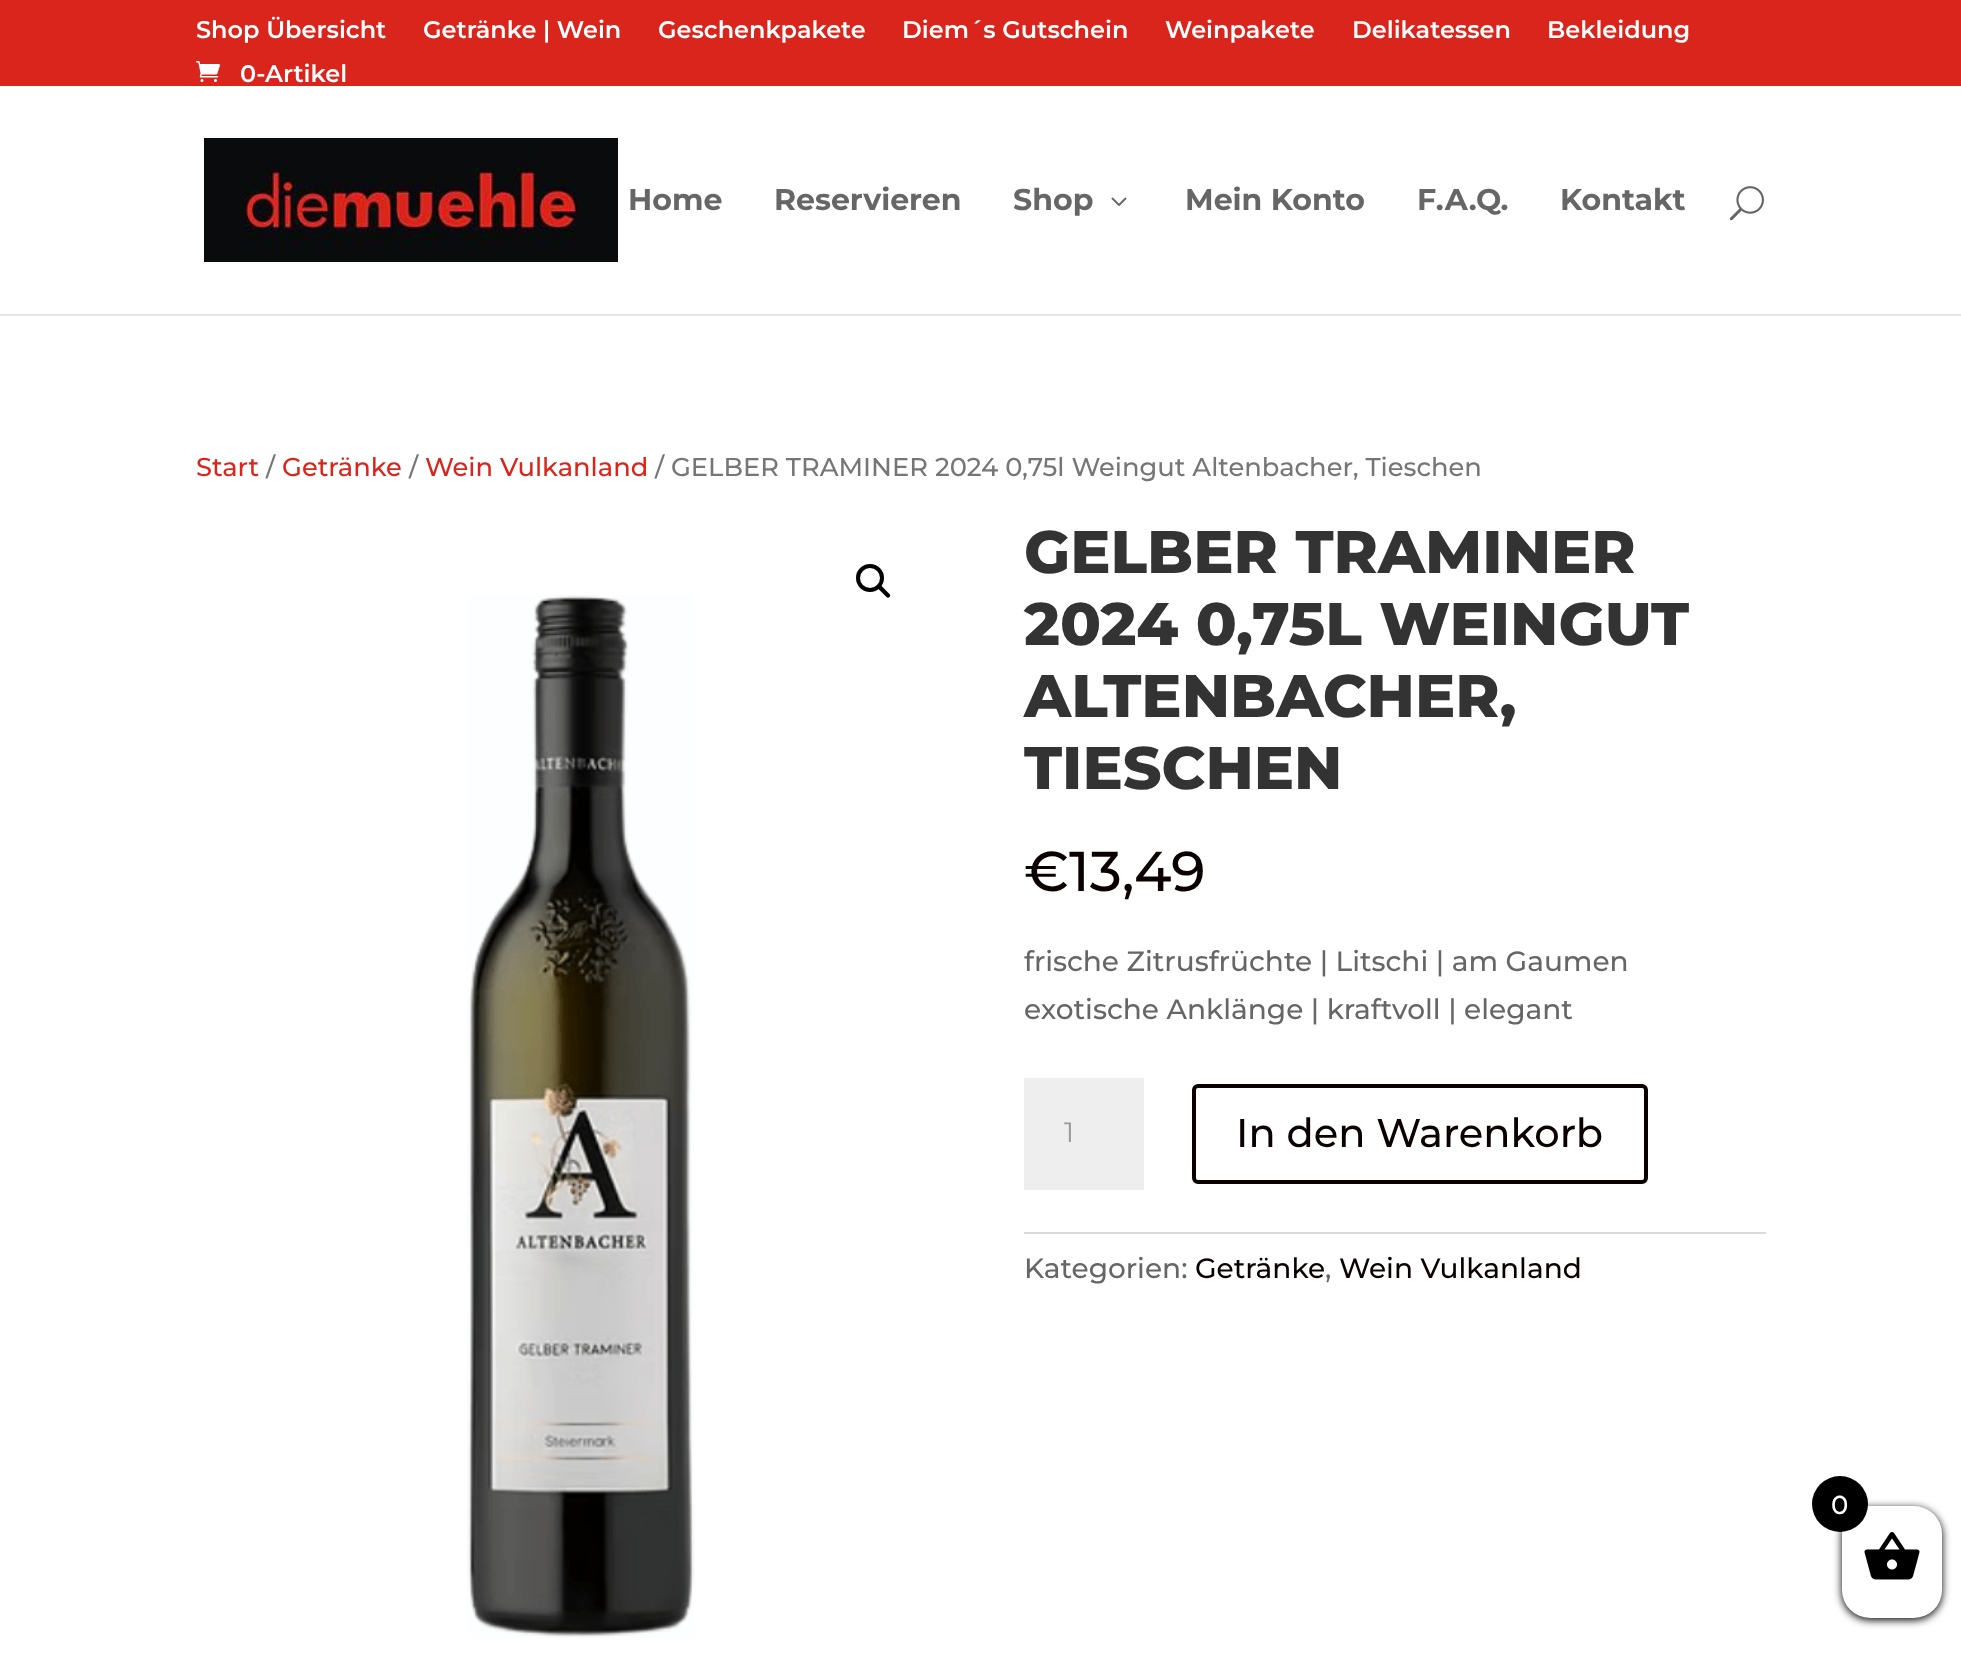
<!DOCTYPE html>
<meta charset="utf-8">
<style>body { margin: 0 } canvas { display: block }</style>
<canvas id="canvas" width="1961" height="1662"></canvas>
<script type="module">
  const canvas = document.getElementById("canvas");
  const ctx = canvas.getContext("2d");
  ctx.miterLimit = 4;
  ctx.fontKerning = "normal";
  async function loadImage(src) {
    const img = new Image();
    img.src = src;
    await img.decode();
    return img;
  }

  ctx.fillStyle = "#ffffff";
  ctx.fillRect(0, 0, 1961, 1662);
  ctx.fillStyle = "#da251c";
  ctx.fillRect(0, 0, 1961, 86);
  ctx.font = "600 24px Montserrat";
  ctx.fillStyle = "#ffffff";
  ctx.fillText("Shop Übersicht", 196, 38);
  ctx.fillText("Getränke | Wein", 423, 38);
  ctx.fillText("Geschenkpakete", 658, 38);
  ctx.fillText("Diem´s Gutschein", 902, 38);
  ctx.fillText("Weinpakete", 1165, 38);
  ctx.fillText("Delikatessen", 1352, 38);
  ctx.fillText("Bekleidung", 1547, 38);
  ctx.drawImage(await loadImage("img1.png"), 196, 61, 24, 21);
  ctx.fillText("0-Artikel", 240, 82);
  ctx.fillStyle = "#e6e6e6";
  ctx.fillRect(0, 314, 1961, 2);
  ctx.drawImage(await loadImage("img2.png"), 204, 138, 414, 124);
  ctx.font = "bold 30px Montserrat";
  ctx.fillStyle = "#666666";
  ctx.fillText("Home", 628, 210);
  ctx.fillText("Reservieren", 774, 210);
  ctx.fillText("Shop", 1013, 210);
  ctx.drawImage(await loadImage("img3.png"), 1111, 197, 16, 9);
  ctx.fillText("Mein Konto", 1185, 210);
  ctx.fillText("F.A.Q.", 1417, 210);
  ctx.fillText("Kontakt", 1560, 210);
  ctx.drawImage(await loadImage("img4.png"), 1729, 186, 35, 35);
  ctx.font = "500 25.75px Montserrat";
  ctx.fillStyle = "#da251c";
  ctx.fillText("Start", 196, 476);
  ctx.fillStyle = "#767676";
  ctx.fillText("/", 266, 476);
  ctx.fillStyle = "#da251c";
  ctx.fillText("Getränke", 282, 476);
  ctx.fillStyle = "#767676";
  ctx.fillText("/", 409, 476);
  ctx.fillStyle = "#da251c";
  ctx.fillText("Wein Vulkanland", 425, 476);
  ctx.fillStyle = "#767676";
  ctx.fillText("/ GELBER TRAMINER 2024 0,75l Weingut Altenbacher, Tieschen", 655, 476);
  ctx.beginPath();
  ctx.arc(870, 578, 12, 0, Math.PI * 2);
  ctx.strokeStyle = "#000000";
  ctx.lineWidth = 4;
  ctx.stroke();
  ctx.fillStyle = "#000000";
  ctx.beginPath();
  ctx.moveTo(878, 585.5);
  ctx.bezierCurveTo(879, 585, 880, 585, 881, 585.5);
  ctx.lineTo(889.5, 594);
  ctx.bezierCurveTo(890.5, 595, 890.5, 596, 889.5, 597);
  ctx.bezierCurveTo(888.5, 598, 887.5, 598, 886.5, 597);
  ctx.lineTo(878, 588.5);
  ctx.bezierCurveTo(877.5, 587.5, 877.5, 586.5, 878, 585.5);
  ctx.closePath();
  ctx.fill();
  ctx.drawImage(await loadImage("img5.png"), 467, 595, 228, 1043);
  ctx.font = "800 60px Montserrat";
  ctx.fillStyle = "#333333";
  ctx.fillText("GELBER TRAMINER", 1024, 573);
  ctx.fillText("2024 0,75L WEINGUT", 1024, 645);
  ctx.fillText("ALTENBACHER,", 1024, 717);
  ctx.fillText("TIESCHEN", 1024, 789);
  ctx.font = "500 56px Montserrat";
  ctx.fillStyle = "#0a0000";
  ctx.fillText("€", 1024, 891);
  ctx.fillText("13,49", 1069, 891);
  ctx.font = "500 28px Montserrat";
  ctx.fillStyle = "#666666";
  ctx.fillText("frische Zitrusfrüchte | Litschi | am Gaumen", 1024, 971);
  ctx.fillText("exotische Anklänge | kraftvoll | elegant", 1024, 1019);
  ctx.fillStyle = "#eeeeee";
  ctx.fillRect(1024, 1078, 120, 112);
  ctx.font = "28px Montserrat";
  ctx.fillStyle = "#999999";
  ctx.fillText("1", 1064, 1142);
  ctx.beginPath();
  ctx.roundRect(1194, 1086, 452, 96, 4);
  ctx.strokeStyle = "#0a0000";
  ctx.stroke();
  ctx.font = "500 40px Montserrat";
  ctx.fillStyle = "#0a0000";
  ctx.fillText("In den Warenkorb", 1236, 1147);
  ctx.fillStyle = "#dadada";
  ctx.fillRect(1024, 1232, 742, 2);
  ctx.font = "500 28px Montserrat";
  ctx.fillStyle = "#666666";
  ctx.fillText("Kategorien:", 1024, 1278);
  ctx.fillStyle = "#0a0000";
  ctx.fillText("Getränke", 1195, 1278);
  ctx.fillStyle = "#666666";
  ctx.fillText(",", 1325, 1278);
  ctx.fillStyle = "#0a0000";
  ctx.fillText("Wein Vulkanland", 1339, 1278);
  ctx.fillStyle = "#000000";
  ctx.filter = "blur(4px)";
  ctx.beginPath();
  ctx.roundRect(1842, 1508, 100, 112, 28);
  ctx.fill();
  ctx.filter = "none";
  ctx.fillStyle = "#ffffff";
  ctx.beginPath();
  ctx.roundRect(1842, 1506, 100, 112, 28);
  ctx.fill();
  ctx.fillStyle = "#000000";
  ctx.beginPath();
  ctx.arc(1840, 1504, 28, 0, Math.PI * 2);
  ctx.fill();
  ctx.font = "500 26px Montserrat";
  ctx.fillStyle = "#ffffff";
  ctx.fillText("0", 1831, 1514);
  ctx.drawImage(await loadImage("img6.png"), 1864, 1532, 56, 48);
</script>
